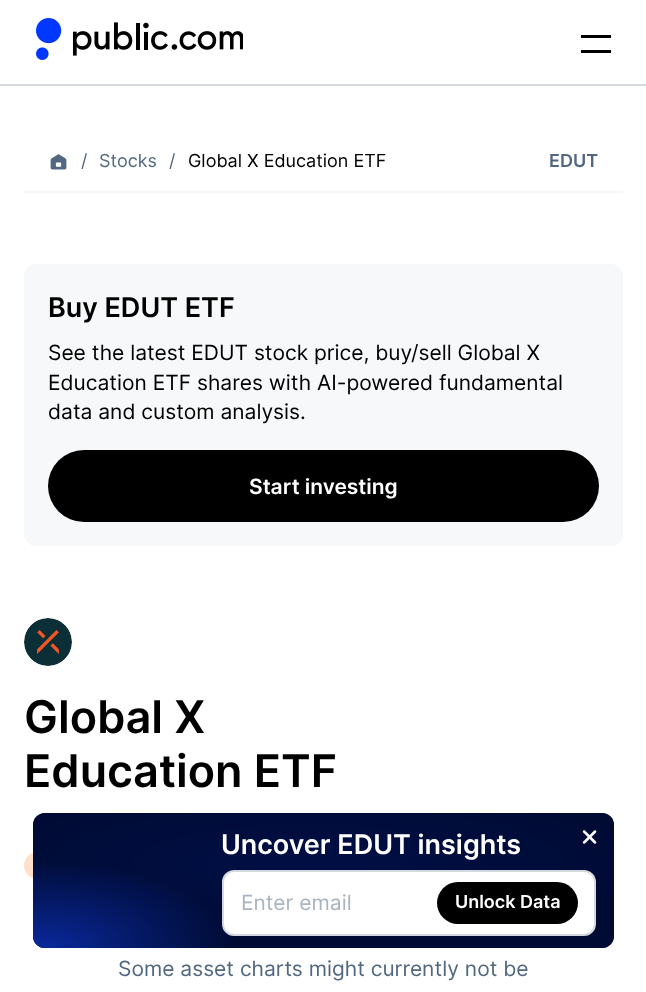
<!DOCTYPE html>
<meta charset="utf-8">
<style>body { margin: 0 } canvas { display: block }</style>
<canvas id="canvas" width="646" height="992"></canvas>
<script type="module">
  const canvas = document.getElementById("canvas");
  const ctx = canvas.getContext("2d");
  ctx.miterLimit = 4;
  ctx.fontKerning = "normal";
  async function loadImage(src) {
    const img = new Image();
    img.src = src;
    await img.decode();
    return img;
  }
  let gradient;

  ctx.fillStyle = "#ffffff";
  ctx.fillRect(0, 0, 646, 992);
  ctx.fillStyle = "#d4d9df";
  ctx.fillRect(0, 84, 646, 2);
  ctx.drawImage(await loadImage("img1.png"), 36, 18, 26, 42);
  ctx.drawImage(await loadImage("img2.png"), 72, 22, 171, 34);
  ctx.fillStyle = "#000000";
  ctx.fillRect(581, 35, 30, 3);
  ctx.fillRect(581, 50, 30, 3);
  ctx.fillStyle = "#f6f8f9";
  ctx.fillRect(24, 191, 599, 2);
  ctx.drawImage(await loadImage("img3.png"), 50, 154, 17, 16);
  ctx.font = "18px Inter";
  ctx.fillStyle = "#516880";
  ctx.fillText("/", 81, 167);
  ctx.fillText("Stocks", 99, 167);
  ctx.fillText("/", 169, 167);
  ctx.fillStyle = "#000000";
  ctx.fillText("Global X Education ETF", 188, 167);
  ctx.font = "600 18px Inter";
  ctx.fillStyle = "#516880";
  ctx.fillText("EDUT", 549, 167);
  ctx.fillStyle = "#f6f8f9";
  ctx.beginPath();
  ctx.roundRect(24, 264, 599, 282, 12);
  ctx.fill();
  ctx.font = "600 27px Inter";
  ctx.fillStyle = "#000000";
  ctx.fillText("Buy EDUT ETF", 48, 317);
  ctx.font = "21px Inter";
  ctx.fillText("See the latest EDUT stock price, buy/sell Global X", 48, 360);
  ctx.fillText("Education ETF shares with AI-powered fundamental", 48, 390);
  ctx.fillText("data and custom analysis.", 48, 419);
  ctx.beginPath();
  ctx.roundRect(48, 450, 551, 72, 36);
  ctx.fill();
  ctx.font = "600 21px Inter";
  ctx.fillStyle = "#ffffff";
  ctx.fillText("Start investing", 249, 494);
  ctx.drawImage(await loadImage("img4.png"), 24, 618, 48, 48);
  ctx.font = "600 45px Inter";
  ctx.fillStyle = "#000000";
  ctx.fillText("Global X", 24, 733);
  ctx.fillText("Education ETF", 24, 787);
  ctx.fillStyle = "#ffe0ca";
  ctx.beginPath();
  ctx.roundRect(24, 852, 116, 27, 13.5);
  ctx.fill();
  ctx.font = "21px Inter";
  ctx.fillStyle = "#516880";
  ctx.fillText("Some asset charts might currently not be", 118, 976);
  gradient = ctx.createRadialGradient(308, 3857.14, 0, 308, 3857.14, 375);
  gradient.addColorStop(0, "#00145d");
  gradient.addColorStop(1, "#000000");
  ctx.fillStyle = gradient;
  ctx.beginPath();
  ctx.roundRect(33, 813, 581, 135, 12);
  ctx.save();
  ctx.clip();
  ctx.scale(1, 84 / 375);
  ctx.fillRect(0, 0, 646, 4429);
  ctx.restore();
  ctx.fillStyle = "rgba(0, 14, 64, 0.8)";
  ctx.beginPath();
  ctx.roundRect(33, 813, 581, 135, 12);
  ctx.fill();
  gradient = ctx.createRadialGradient(40, 2113.93, 0, 40, 2113.93, 194);
  gradient.addColorStop(0, "#09299d");
  gradient.addColorStop(1, "rgba(9, 41, 157, 0)");
  ctx.fillStyle = gradient;
  ctx.beginPath();
  ctx.roundRect(33, 813, 581, 135, 12);
  ctx.save();
  ctx.clip();
  ctx.scale(1, 87 / 194);
  ctx.fillRect(0, 0, 646, 2213);
  ctx.restore();
  ctx.font = "600 27px Inter";
  ctx.fillStyle = "#ffffff";
  ctx.fillText("Uncover EDUT insights", 221, 854);
  ctx.beginPath();
  ctx.roundRect(223, 871, 372, 64, 11);
  ctx.fill();
  ctx.strokeStyle = "#d4d9df";
  ctx.lineWidth = 2;
  ctx.stroke();
  ctx.font = "21px Inter";
  ctx.fillStyle = "#a8b4bf";
  ctx.fillText("Enter email", 241, 910);
  ctx.fillStyle = "#000000";
  ctx.beginPath();
  ctx.roundRect(437, 882, 141, 42, 21);
  ctx.fill();
  ctx.font = "600 18px Inter";
  ctx.fillStyle = "#ffffff";
  ctx.fillText("Unlock Data", 455, 908);
  ctx.drawImage(await loadImage("img5.png"), 582, 830, 15, 14);
</script>
